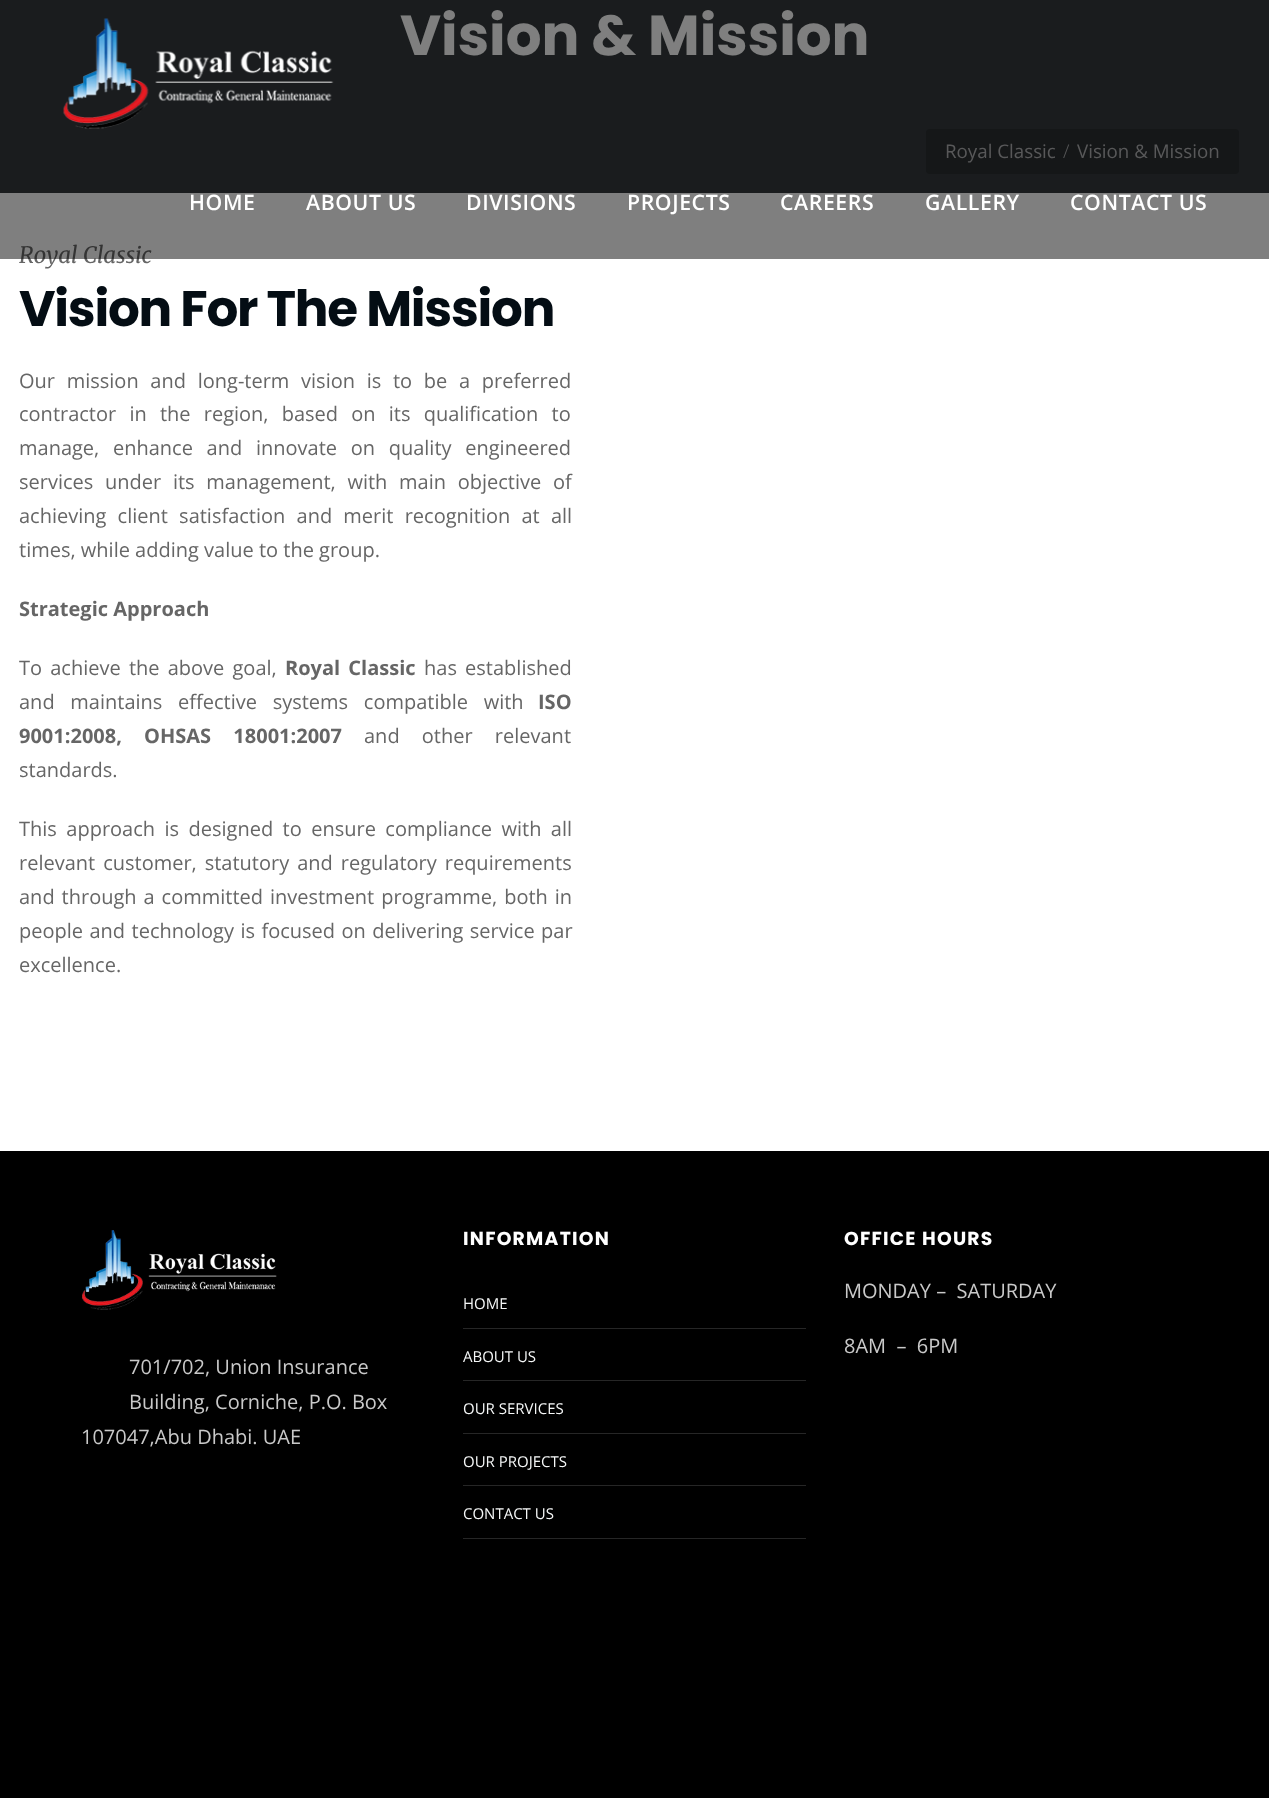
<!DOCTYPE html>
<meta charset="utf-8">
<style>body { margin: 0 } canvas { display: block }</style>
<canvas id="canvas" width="1269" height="1798"></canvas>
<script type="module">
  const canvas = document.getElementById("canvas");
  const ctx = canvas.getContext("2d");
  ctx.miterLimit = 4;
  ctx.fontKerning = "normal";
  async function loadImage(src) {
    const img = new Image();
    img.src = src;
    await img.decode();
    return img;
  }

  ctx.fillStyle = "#ffffff";
  ctx.fillRect(0, 0, 1269, 1798);
  ctx.fillStyle = "#34393c";
  ctx.fillRect(0, 0, 1269, 193);
  ctx.font = "bold 56.25px Poppins";
  ctx.fillStyle = "#ffffff";
  ctx.fillText("Vision & Mission", 400, 55);
  ctx.fillStyle = "#2a2e30";
  ctx.beginPath();
  ctx.roundRect(926, 129, 313, 45, 4);
  ctx.fill();
  ctx.font = "18.75px Open Sans";
  ctx.fillStyle = "#b0b1b3";
  ctx.fillText("Royal Classic", 945, 158);
  ctx.font = "300 18.75px Open Sans";
  ctx.fillText("/", 1063, 158);
  ctx.font = "18.75px Open Sans";
  ctx.fillText("Vision & Mission", 1077, 158);
  ctx.font = "italic 22.5px Merriweather";
  ctx.fillStyle = "#666666";
  ctx.fillText("Royal Classic", 19, 263);
  ctx.fillStyle = "rgba(0, 0, 0, 0.5)";
  ctx.fillRect(0, 0, 1269, 259);
  ctx.drawImage(await loadImage("img1.png"), 63, 18, 271, 111);
  ctx.letterSpacing = "0.6px";
  ctx.font = "600 21.25px Open Sans";
  ctx.fillStyle = "#ffffff";
  ctx.fillText("HOME", 189, 210);
  ctx.fillText("ABOUT US", 306, 210);
  ctx.fillText("DIVISIONS", 466, 210);
  ctx.fillText("PROJECTS", 627, 210);
  ctx.fillText("CAREERS", 780, 210);
  ctx.fillText("GALLERY", 925, 210);
  ctx.fillText("CONTACT US", 1070, 210);
  ctx.letterSpacing = "-1.25px";
  ctx.font = "bold 50px Poppins";
  ctx.fillStyle = "#040d14";
  ctx.fillText("Vision For The Mission", 19, 326);
  ctx.letterSpacing = "0px";
  ctx.wordSpacing = "6.5px";
  ctx.font = "20px Open Sans";
  ctx.fillStyle = "#666666";
  ctx.fillText("Our mission and long-term vision is to be a preferred", 19, 388);
  ctx.wordSpacing = "8px";
  ctx.fillText("contractor in the region, based on its qualification to", 19, 421);
  ctx.wordSpacing = "8.5px";
  ctx.fillText("manage, enhance and innovate on quality engineered", 19, 455);
  ctx.wordSpacing = "6.5px";
  ctx.fillText("services under its management, with main objective of", 19, 489);
  ctx.wordSpacing = "6px";
  ctx.fillText("achieving client satisfaction and merit recognition at all", 19, 523);
  ctx.wordSpacing = "0px";
  ctx.fillText("times, while adding value to the group.", 19, 557);
  ctx.font = "bold 20px Open Sans";
  ctx.fillText("Strategic Approach", 19, 616);
  ctx.wordSpacing = "3px";
  ctx.font = "20px Open Sans";
  ctx.fillText("To achieve the above goal,", 19, 675);
  ctx.font = "bold 20px Open Sans";
  ctx.fillText("Royal Classic", 285, 675);
  ctx.font = "20px Open Sans";
  ctx.fillText("has established", 424, 675);
  ctx.wordSpacing = "10.5px";
  ctx.fillText("and maintains effective systems compatible with", 19, 709);
  ctx.wordSpacing = "0px";
  ctx.font = "bold 20px Open Sans";
  ctx.fillText("ISO", 538, 709);
  ctx.wordSpacing = "17px";
  ctx.fillText("9001:2008, OHSAS 18001:2007", 19, 743);
  ctx.font = "20px Open Sans";
  ctx.fillText("and other relevant", 364, 743);
  ctx.wordSpacing = "0px";
  ctx.fillText("standards.", 19, 777);
  ctx.wordSpacing = "4.25px";
  ctx.fillText("This approach is designed to ensure compliance with all", 19, 836);
  ctx.wordSpacing = "2.75px";
  ctx.fillText("relevant customer, statutory and regulatory requirements", 19, 870);
  ctx.wordSpacing = "1.75px";
  ctx.fillText("and through a committed investment programme, both in", 19, 904);
  ctx.wordSpacing = "1.25px";
  ctx.fillText("people and technology is focused on delivering service par", 19, 938);
  ctx.wordSpacing = "0px";
  ctx.fillText("excellence.", 19, 972);
  ctx.fillStyle = "#000000";
  ctx.fillRect(0, 1151, 1269, 647);
  ctx.letterSpacing = "1.25px";
  ctx.font = "bold 18.75px Poppins";
  ctx.fillStyle = "#ffffff";
  ctx.fillText("INFORMATION", 463, 1245);
  ctx.fillStyle = "#262626";
  ctx.fillRect(463, 1328, 343, 1);
  ctx.letterSpacing = "0px";
  ctx.font = "15px Open Sans";
  ctx.fillStyle = "#f5f7f7";
  ctx.fillText("HOME", 463, 1309);
  ctx.fillStyle = "#262626";
  ctx.fillRect(463, 1380, 343, 1);
  ctx.fillStyle = "#f5f7f7";
  ctx.fillText("ABOUT US", 463, 1362);
  ctx.fillStyle = "#262626";
  ctx.fillRect(463, 1433, 343, 1);
  ctx.fillStyle = "#f5f7f7";
  ctx.fillText("OUR SERVICES", 463, 1414);
  ctx.fillStyle = "#262626";
  ctx.fillRect(463, 1485, 343, 1);
  ctx.fillStyle = "#f5f7f7";
  ctx.fillText("OUR PROJECTS", 463, 1467);
  ctx.fillStyle = "#262626";
  ctx.fillRect(463, 1538, 343, 1);
  ctx.fillStyle = "#f5f7f7";
  ctx.fillText("CONTACT US", 463, 1519);
  ctx.letterSpacing = "1.25px";
  ctx.font = "bold 18.75px Poppins";
  ctx.fillStyle = "#ffffff";
  ctx.fillText("OFFICE HOURS", 844, 1245);
  ctx.letterSpacing = "0px";
  ctx.font = "20px Open Sans";
  ctx.fillStyle = "#c9c9c9";
  ctx.fillText("MONDAY –  SATURDAY", 844, 1298);
  ctx.fillText("8AM  –  6PM", 844, 1353);
  ctx.drawImage(await loadImage("img2.png"), 82, 1230, 195, 80);
  ctx.fillText("701/702, Union Insurance", 129, 1374);
  ctx.fillText("Building, Corniche, P.O. Box", 129, 1409);
  ctx.fillText("107047,Abu Dhabi. UAE", 81, 1444);
</script>
